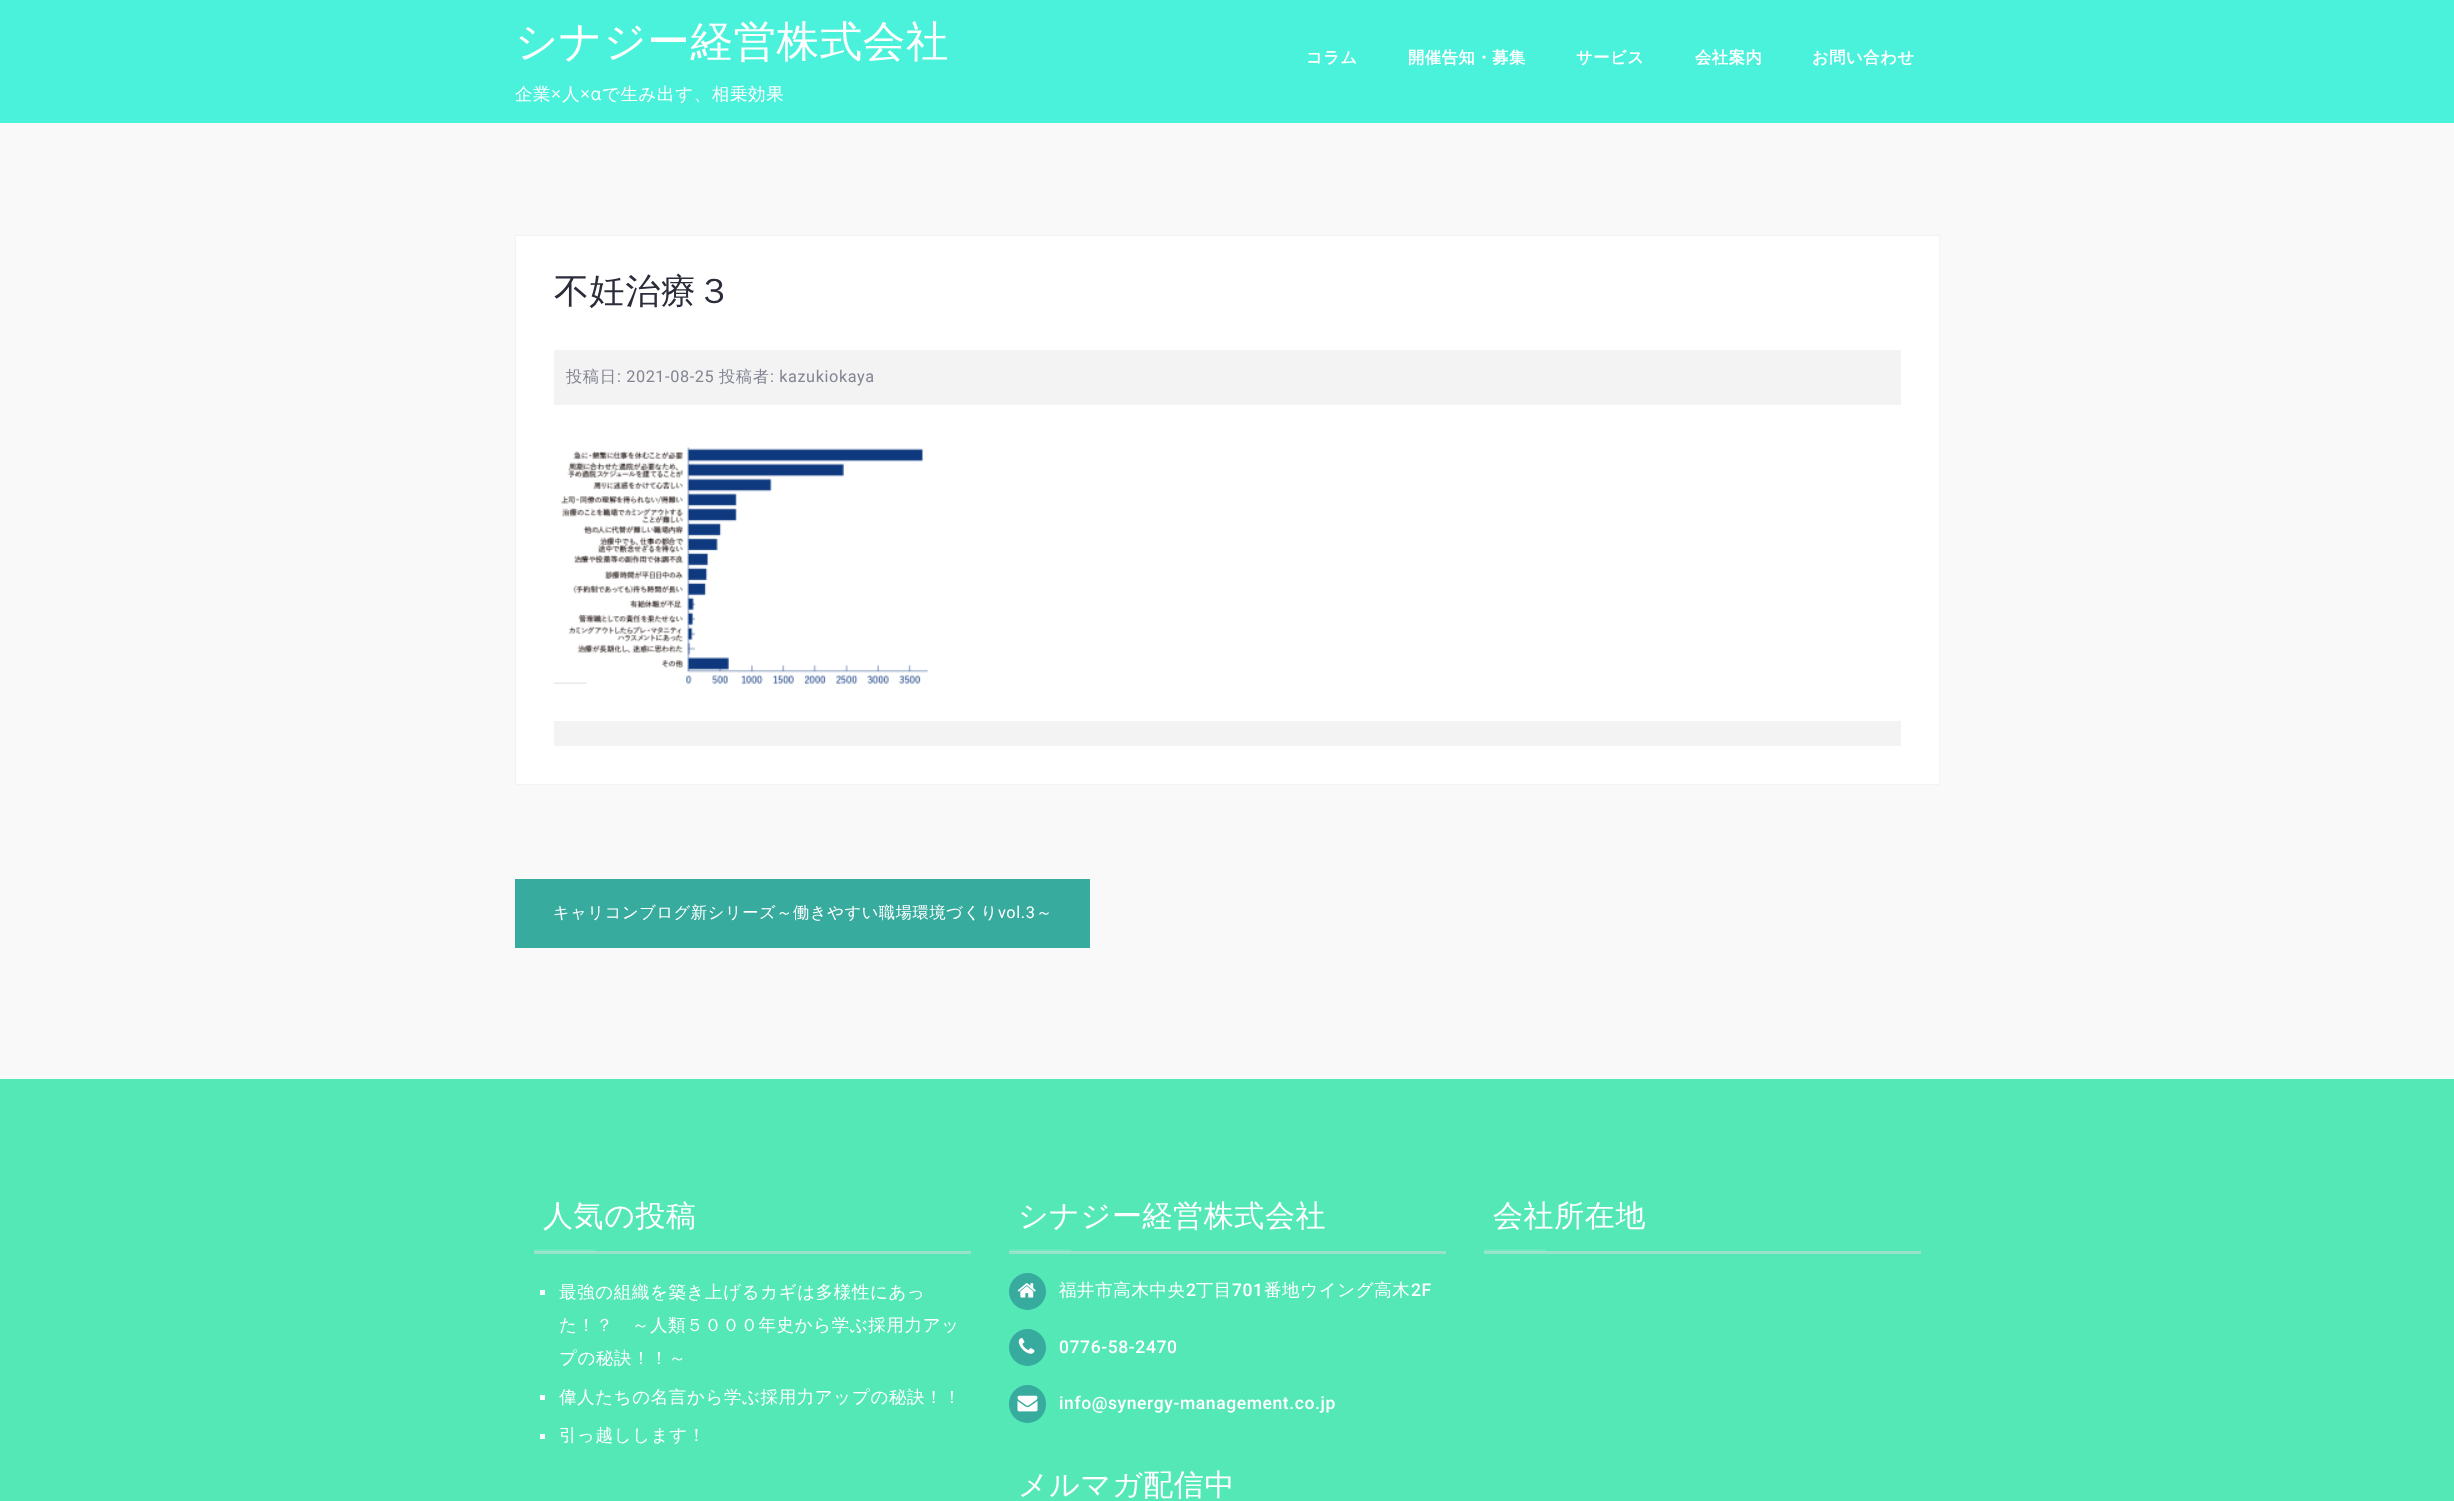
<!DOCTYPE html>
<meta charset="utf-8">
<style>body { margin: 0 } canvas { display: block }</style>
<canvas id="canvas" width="2454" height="1501"></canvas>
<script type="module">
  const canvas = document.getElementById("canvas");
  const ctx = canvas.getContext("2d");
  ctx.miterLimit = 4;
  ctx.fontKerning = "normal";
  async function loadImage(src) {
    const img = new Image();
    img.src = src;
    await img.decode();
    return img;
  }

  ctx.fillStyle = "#f9f9f9";
  ctx.fillRect(0, 0, 2454, 1501);
  ctx.fillStyle = "#4bf2db";
  ctx.fillRect(0, 0, 2454, 123);
  ctx.letterSpacing = "0.6px";
  ctx.font = "500 42.5px WenQuanYi Zen Hei";
  ctx.fillStyle = "#ffffff";
  ctx.fillText("シナジー経営株式会社", 515, 56);
  ctx.font = "500 17.5px WenQuanYi Zen Hei";
  ctx.fillText("企業", 515, 100);
  ctx.font = "17.5px Open Sans";
  ctx.fillText("×", 551, 100);
  ctx.font = "500 17.5px WenQuanYi Zen Hei";
  ctx.fillText("人", 562, 100);
  ctx.font = "17.5px Open Sans";
  ctx.fillText("×α", 580, 100);
  ctx.font = "500 17.5px WenQuanYi Zen Hei";
  ctx.fillText("で生み出す、相乗効果", 602, 100);
  ctx.font = "bold 16.25px WenQuanYi Zen Hei";
  ctx.fillText("コラム", 1306, 63);
  ctx.fillText("開催告知・募集", 1408, 63);
  ctx.fillText("サービス", 1576, 63);
  ctx.fillText("会社案内", 1695, 63);
  ctx.fillText("お問い合わせ", 1812, 63);
  ctx.beginPath();
  ctx.rect(515.5, 235.5, 1424, 549);
  ctx.fill();
  ctx.strokeStyle = "#f3f3f3";
  ctx.stroke();
  ctx.font = "500 35px WenQuanYi Zen Hei";
  ctx.fillStyle = "#2b2d3a";
  ctx.fillText("不妊治療３", 554, 303);
  ctx.fillStyle = "#f3f3f3";
  ctx.fillRect(554, 350, 1347, 55);
  ctx.font = "500 16.25px WenQuanYi Zen Hei";
  ctx.fillStyle = "#838592";
  ctx.fillText("投稿日", 566, 382);
  ctx.font = "16.25px Roboto";
  ctx.fillText(": 2021-08-25", 617, 382);
  ctx.font = "500 16.25px WenQuanYi Zen Hei";
  ctx.fillText("投稿者", 719, 382);
  ctx.font = "16.25px Roboto";
  ctx.fillText(": kazukiokaya", 770, 382);
  ctx.drawImage(await loadImage("img1.png"), 553, 447, 376, 237);
  ctx.fillStyle = "#f3f3f3";
  ctx.fillRect(554, 721, 1347, 25);
  ctx.fillStyle = "#37ab9d";
  ctx.fillRect(515, 879, 575, 69);
  ctx.font = "500 16.25px WenQuanYi Zen Hei";
  ctx.fillStyle = "#ffffff";
  ctx.fillText("キャリコンブログ新シリーズ～働きやすい職場環境づくり", 553, 918);
  ctx.font = "16.25px Roboto";
  ctx.fillText("vol.3", 998, 918);
  ctx.font = "500 16.25px WenQuanYi Zen Hei";
  ctx.fillText("～", 1036, 918);
  ctx.fillStyle = "#53e8b6";
  ctx.fillRect(0, 1079, 2454, 422);
  ctx.fillStyle = "#64eabd";
  ctx.fillRect(1484, 1249, 62, 2);
  ctx.fillRect(1009, 1249, 62, 2);
  ctx.fillRect(534, 1249, 62, 2);
  ctx.fillStyle = "#97e3c8";
  ctx.fillRect(534, 1251, 437, 3);
  ctx.fillStyle = "#a1e6ce";
  ctx.fillRect(534, 1251, 62, 1);
  ctx.font = "500 30px WenQuanYi Zen Hei";
  ctx.fillStyle = "#ffffff";
  ctx.fillText("人気の投稿", 543, 1226);
  ctx.fillRect(540, 1290, 5, 5);
  ctx.font = "500 17.5px WenQuanYi Zen Hei";
  ctx.fillText("最強の組織を築き上げるカギは多様性にあっ", 559, 1298);
  ctx.fillText("た！？　～人類５０００年史から学ぶ採用力アッ", 559, 1331);
  ctx.fillText("プの秘訣！！～", 559, 1364);
  ctx.fillRect(540, 1395, 5, 5);
  ctx.fillText("偉人たちの名言から学ぶ採用力アップの秘訣！！", 559, 1403);
  ctx.fillRect(540, 1434, 5, 5);
  ctx.fillText("引っ越しします！", 559, 1441);
  ctx.fillStyle = "#97e3c8";
  ctx.fillRect(1009, 1251, 437, 3);
  ctx.fillStyle = "#a1e6ce";
  ctx.fillRect(1009, 1251, 62, 1);
  ctx.font = "500 30px WenQuanYi Zen Hei";
  ctx.fillStyle = "#ffffff";
  ctx.fillText("シナジー経営株式会社", 1018, 1226);
  ctx.fillStyle = "#37ab9d";
  ctx.beginPath();
  ctx.arc(1027.5, 1291.5, 18.5, 0, Math.PI * 2);
  ctx.fill();
  ctx.drawImage(await loadImage("img2.png"), 1017, 1283, 19, 15);
  ctx.font = "500 17.5px WenQuanYi Zen Hei";
  ctx.fillStyle = "#ffffff";
  ctx.fillText("福井市高木中央", 1059, 1296);
  ctx.font = "500 17.5px Roboto";
  ctx.fillText("2", 1186, 1296);
  ctx.font = "500 17.5px WenQuanYi Zen Hei";
  ctx.fillText("丁目", 1196, 1296);
  ctx.font = "500 17.5px Roboto";
  ctx.fillText("701", 1232, 1296);
  ctx.font = "500 17.5px WenQuanYi Zen Hei";
  ctx.fillText("番地ウイング高木", 1264, 1296);
  ctx.font = "500 17.5px Roboto";
  ctx.fillText("2F", 1411, 1296);
  ctx.fillStyle = "#37ab9d";
  ctx.beginPath();
  ctx.arc(1027.5, 1347.5, 18.5, 0, Math.PI * 2);
  ctx.fill();
  ctx.drawImage(await loadImage("img3.png"), 1018, 1338, 17, 16);
  ctx.fillStyle = "#ffffff";
  ctx.fillText("0776-58-2470", 1059, 1353);
  ctx.fillStyle = "#37ab9d";
  ctx.beginPath();
  ctx.roundRect(1009, 1385, 37, 38, 18.5);
  ctx.fill();
  ctx.drawImage(await loadImage("img4.png"), 1017, 1395, 21, 17);
  ctx.fillStyle = "#ffffff";
  ctx.fillText("info@synergy-management.co.jp", 1059, 1409);
  ctx.font = "500 30px WenQuanYi Zen Hei";
  ctx.fillText("メルマガ配信中", 1018, 1495);
  ctx.fillStyle = "#97e3c8";
  ctx.fillRect(1484, 1251, 437, 3);
  ctx.fillStyle = "#a1e6ce";
  ctx.fillRect(1484, 1251, 62, 1);
  ctx.fillStyle = "#ffffff";
  ctx.fillText("会社所在地", 1493, 1226);
</script>
